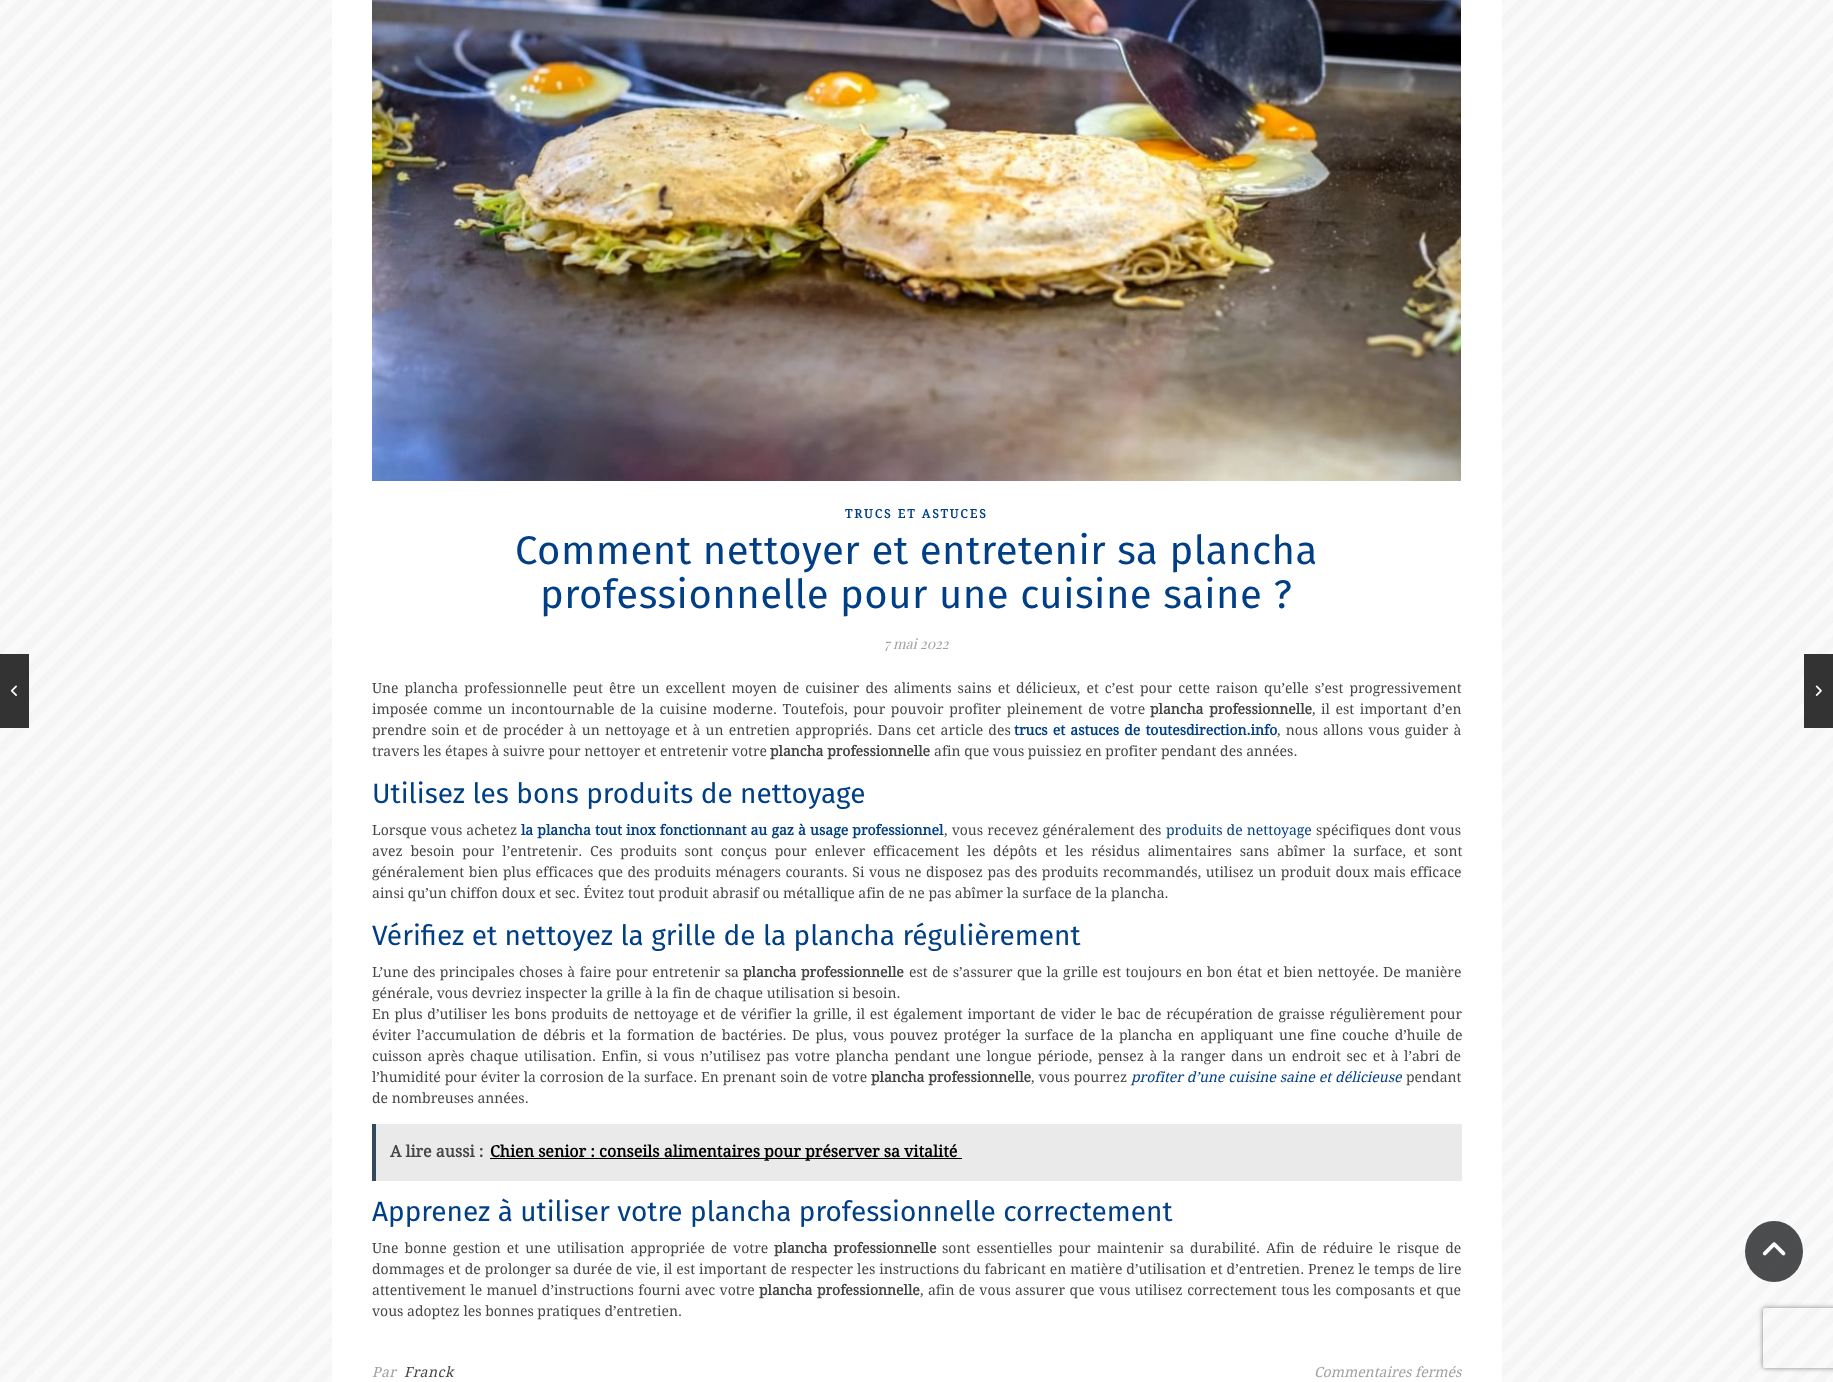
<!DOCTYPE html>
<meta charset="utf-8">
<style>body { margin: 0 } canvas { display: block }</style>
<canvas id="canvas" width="1833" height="1382"></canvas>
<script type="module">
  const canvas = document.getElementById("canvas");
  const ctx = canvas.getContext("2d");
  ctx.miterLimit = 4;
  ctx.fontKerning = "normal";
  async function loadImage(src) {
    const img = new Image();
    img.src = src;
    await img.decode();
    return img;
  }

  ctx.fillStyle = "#ffffff";
  ctx.fillRect(0, 0, 1833, 1382);
  ctx.drawImage(await loadImage("img1.png"), 0, 0, 1833, 1382);
  ctx.fillRect(332, 0, 1170, 1382);
  ctx.fillStyle = "#333333";
  ctx.fillRect(0, 654, 29, 74);
  ctx.drawImage(await loadImage("img2.png"), 10, 685, 7, 11);
  ctx.drawImage(await loadImage("img3.png"), 372, 0, 1089, 481);
  ctx.letterSpacing = "2px";
  ctx.font = "bold 12px Droid Serif";
  ctx.fillStyle = "#003f86";
  ctx.fillText("TRUCS ET ASTUCES", 845, 518);
  ctx.letterSpacing = "0.5px";
  ctx.font = "40px Fira Sans";
  ctx.fillText("Comment nettoyer et entretenir sa plancha", 515, 564);
  ctx.fillText("professionnelle pour une cuisine saine ?", 540, 608);
  ctx.letterSpacing = "0px";
  ctx.font = "italic 14px Playfair Display";
  ctx.fillStyle = "#a1a1a1";
  ctx.fillText("7 mai 2022", 884, 649);
  ctx.wordSpacing = "2.4px";
  ctx.font = "14px Droid Serif";
  ctx.fillStyle = "#464646";
  ctx.fillText("Une plancha professionnelle peut être un excellent moyen de cuisiner des aliments sains et délicieux, et c’est pour cette raison qu’elle s’est progressivement", 372, 693);
  ctx.wordSpacing = "1.9px";
  ctx.fillText("imposée comme un incontournable de la cuisine moderne. Toutefois, pour pouvoir profiter pleinement de votre", 372, 714);
  ctx.wordSpacing = "2px";
  ctx.font = "bold 14px Droid Serif";
  ctx.fillText("plancha professionnelle", 1150, 714);
  ctx.wordSpacing = "1.9px";
  ctx.font = "14px Droid Serif";
  ctx.fillText(", il est important d’en", 1312, 714);
  ctx.wordSpacing = "1.5px";
  ctx.fillText("prendre soin et de procéder à un nettoyage et à un entretien appropriés. Dans cet article des", 372, 735);
  ctx.font = "bold 14px Droid Serif";
  ctx.fillStyle = "#003f86";
  ctx.fillText("trucs et astuces de toutesdirection.info", 1014, 735);
  ctx.font = "14px Droid Serif";
  ctx.fillStyle = "#464646";
  ctx.fillText(", nous allons vous guider à", 1277, 735);
  ctx.wordSpacing = "0px";
  ctx.fillText("travers les étapes à suivre pour nettoyer et entretenir votre", 372, 756);
  ctx.font = "bold 14px Droid Serif";
  ctx.fillText("plancha professionnelle", 770, 756);
  ctx.font = "14px Droid Serif";
  ctx.fillText("afin que vous puissiez en profiter pendant des années.", 934, 756);
  ctx.font = "28px Fira Sans";
  ctx.fillStyle = "#003f86";
  ctx.fillText("Utilisez les bons produits de nettoyage", 372, 803);
  ctx.wordSpacing = "0.5px";
  ctx.font = "14px Droid Serif";
  ctx.fillStyle = "#464646";
  ctx.fillText("Lorsque vous achetez", 372, 835);
  ctx.font = "bold 14px Droid Serif";
  ctx.fillStyle = "#003f86";
  ctx.fillText("la plancha tout inox fonctionnant au gaz à usage professionnel", 521, 835);
  ctx.font = "14px Droid Serif";
  ctx.fillStyle = "#464646";
  ctx.fillText(", vous recevez généralement des", 944, 835);
  ctx.fillStyle = "#003f86";
  ctx.fillText("produits de nettoyage", 1166, 835);
  ctx.fillStyle = "#464646";
  ctx.fillText("spécifiques dont vous", 1316, 835);
  ctx.wordSpacing = "4.2px";
  ctx.fillText("avez besoin pour l’entretenir. Ces produits sont conçus pour enlever efficacement les dépôts et les résidus alimentaires sans abîmer la surface, et sont", 372, 856);
  ctx.wordSpacing = "0.9px";
  ctx.fillText("généralement bien plus efficaces que des produits ménagers courants. Si vous ne disposez pas des produits recommandés, utilisez un produit doux mais efficace", 372, 877);
  ctx.wordSpacing = "0px";
  ctx.fillText("ainsi qu’un chiffon doux et sec. Évitez tout produit abrasif ou métallique afin de ne pas abîmer la surface de la plancha.", 372, 898);
  ctx.font = "28px Fira Sans";
  ctx.fillStyle = "#003f86";
  ctx.fillText("Vérifiez et nettoyez la grille de la plancha régulièrement", 372, 945);
  ctx.wordSpacing = "0.8px";
  ctx.font = "14px Droid Serif";
  ctx.fillStyle = "#464646";
  ctx.fillText("L’une des principales choses à faire pour entretenir sa", 372, 977);
  ctx.font = "bold 14px Droid Serif";
  ctx.fillText("plancha professionnelle", 743, 977);
  ctx.font = "14px Droid Serif";
  ctx.fillText("est de s’assurer que la grille est toujours en bon état et bien nettoyée. De manière", 909, 977);
  ctx.wordSpacing = "0px";
  ctx.fillText("générale, vous devriez inspecter la grille à la fin de chaque utilisation si besoin.", 372, 998);
  ctx.wordSpacing = "1.1px";
  ctx.fillText("En plus d’utiliser les bons produits de nettoyage et de vérifier la grille, il est également important de vider le bac de récupération de graisse régulièrement pour", 372, 1019);
  ctx.wordSpacing = "2px";
  ctx.fillText("éviter l’accumulation de débris et la formation de bactéries. De plus, vous pouvez protéger la surface de la plancha en appliquant une fine couche d’huile de", 372, 1040);
  ctx.wordSpacing = "1.9px";
  ctx.fillText("cuisson après chaque utilisation. Enfin, si vous n’utilisez pas votre plancha pendant une longue période, pensez à la ranger dans un endroit sec et à l’abri de", 372, 1061);
  ctx.wordSpacing = "0.25px";
  ctx.fillText("l’humidité pour éviter la corrosion de la surface. En prenant soin de votre", 372, 1082);
  ctx.wordSpacing = "0px";
  ctx.font = "bold 14px Droid Serif";
  ctx.fillText("plancha professionnelle", 871, 1082);
  ctx.wordSpacing = "0.25px";
  ctx.font = "14px Droid Serif";
  ctx.fillText(", vous pourrez", 1031, 1082);
  ctx.font = "italic 14px Droid Serif";
  ctx.fillStyle = "#003f86";
  ctx.fillText("profiter d’une cuisine saine et délicieuse", 1131, 1082);
  ctx.wordSpacing = "0px";
  ctx.font = "14px Droid Serif";
  ctx.fillStyle = "#464646";
  ctx.fillText("pendant", 1406, 1082);
  ctx.fillText("de nombreuses années.", 372, 1103);
  ctx.fillStyle = "#eaeaea";
  ctx.fillRect(376, 1124, 1086, 57);
  ctx.fillStyle = "#34495e";
  ctx.fillRect(372, 1124, 4, 57);
  ctx.font = "bold 16px Droid Serif";
  ctx.fillStyle = "#464646";
  ctx.fillText("A lire aussi :", 390, 1157);
  ctx.fillStyle = "#000000";
  ctx.fillRect(490, 1158, 472, 1);
  ctx.fillText("Chien senior : conseils alimentaires pour préserver sa vitalité", 490, 1157);
  ctx.font = "28px Fira Sans";
  ctx.fillStyle = "#003f86";
  ctx.fillText("Apprenez à utiliser votre plancha professionnelle correctement", 372, 1221);
  ctx.wordSpacing = "2.4px";
  ctx.font = "14px Droid Serif";
  ctx.fillStyle = "#464646";
  ctx.fillText("Une bonne gestion et une utilisation appropriée de votre", 372, 1253);
  ctx.font = "bold 14px Droid Serif";
  ctx.fillText("plancha professionnelle", 774, 1253);
  ctx.font = "14px Droid Serif";
  ctx.fillText("sont essentielles pour maintenir sa durabilité. Afin de réduire le risque de", 942, 1253);
  ctx.wordSpacing = "0.3px";
  ctx.fillText("dommages et de prolonger sa durée de vie, il est important de respecter les instructions du fabricant en matière d’utilisation et d’entretien. Prenez le temps de lire", 372, 1274);
  ctx.wordSpacing = "0.75px";
  ctx.fillText("attentivement le manuel d’instructions fourni avec votre", 372, 1295);
  ctx.font = "bold 14px Droid Serif";
  ctx.fillText("plancha professionnelle", 759, 1295);
  ctx.font = "14px Droid Serif";
  ctx.fillText(", afin de vous assurer que vous utilisez correctement tous", 920, 1295);
  ctx.fillText("les composants et que", 1313, 1295);
  ctx.wordSpacing = "0px";
  ctx.fillText("vous adoptez les bonnes pratiques d’entretien.", 372, 1316);
  ctx.letterSpacing = "0.5px";
  ctx.font = "italic 14px Droid Serif";
  ctx.fillStyle = "#a1a1a1";
  ctx.fillText("Par", 372, 1377);
  ctx.fillStyle = "#464646";
  ctx.fillText("Franck", 404, 1377);
  ctx.letterSpacing = "0px";
  ctx.fillStyle = "#a1a1a1";
  ctx.fillText("Commentaires fermés", 1314, 1377);
  ctx.fillStyle = "#333333";
  ctx.fillRect(1804, 654, 29, 74);
  ctx.drawImage(await loadImage("img4.png"), 1815, 685, 7, 11);
  ctx.fillStyle = "rgba(33, 34, 35, 0.8)";
  ctx.beginPath();
  ctx.ellipse(1774, 1251.5, 29, 30.5, 0, 0, Math.PI * 2);
  ctx.fill();
  ctx.drawImage(await loadImage("img5.png"), 1762, 1242, 24, 14);
  ctx.save();
  ctx.beginPath();
  ctx.moveTo(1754, 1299);
  ctx.lineTo(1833, 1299);
  ctx.lineTo(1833, 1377);
  ctx.lineTo(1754, 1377);
  ctx.closePath();
  ctx.moveTo(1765, 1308);
  ctx.lineTo(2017, 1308);
  ctx.bezierCurveTo(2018, 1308, 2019, 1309, 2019, 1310);
  ctx.lineTo(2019, 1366);
  ctx.bezierCurveTo(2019, 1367, 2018, 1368, 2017, 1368);
  ctx.lineTo(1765, 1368);
  ctx.bezierCurveTo(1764, 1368, 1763, 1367, 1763, 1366);
  ctx.lineTo(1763, 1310);
  ctx.bezierCurveTo(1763, 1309, 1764, 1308, 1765, 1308);
  ctx.closePath();
  ctx.clip("evenodd");
  ctx.fillStyle = "#808080";
  ctx.filter = "blur(2.5px)";
  ctx.beginPath();
  ctx.roundRect(1763, 1308, 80, 60, 2);
  ctx.fill();
  ctx.filter = "none";
  ctx.restore();
</script>
